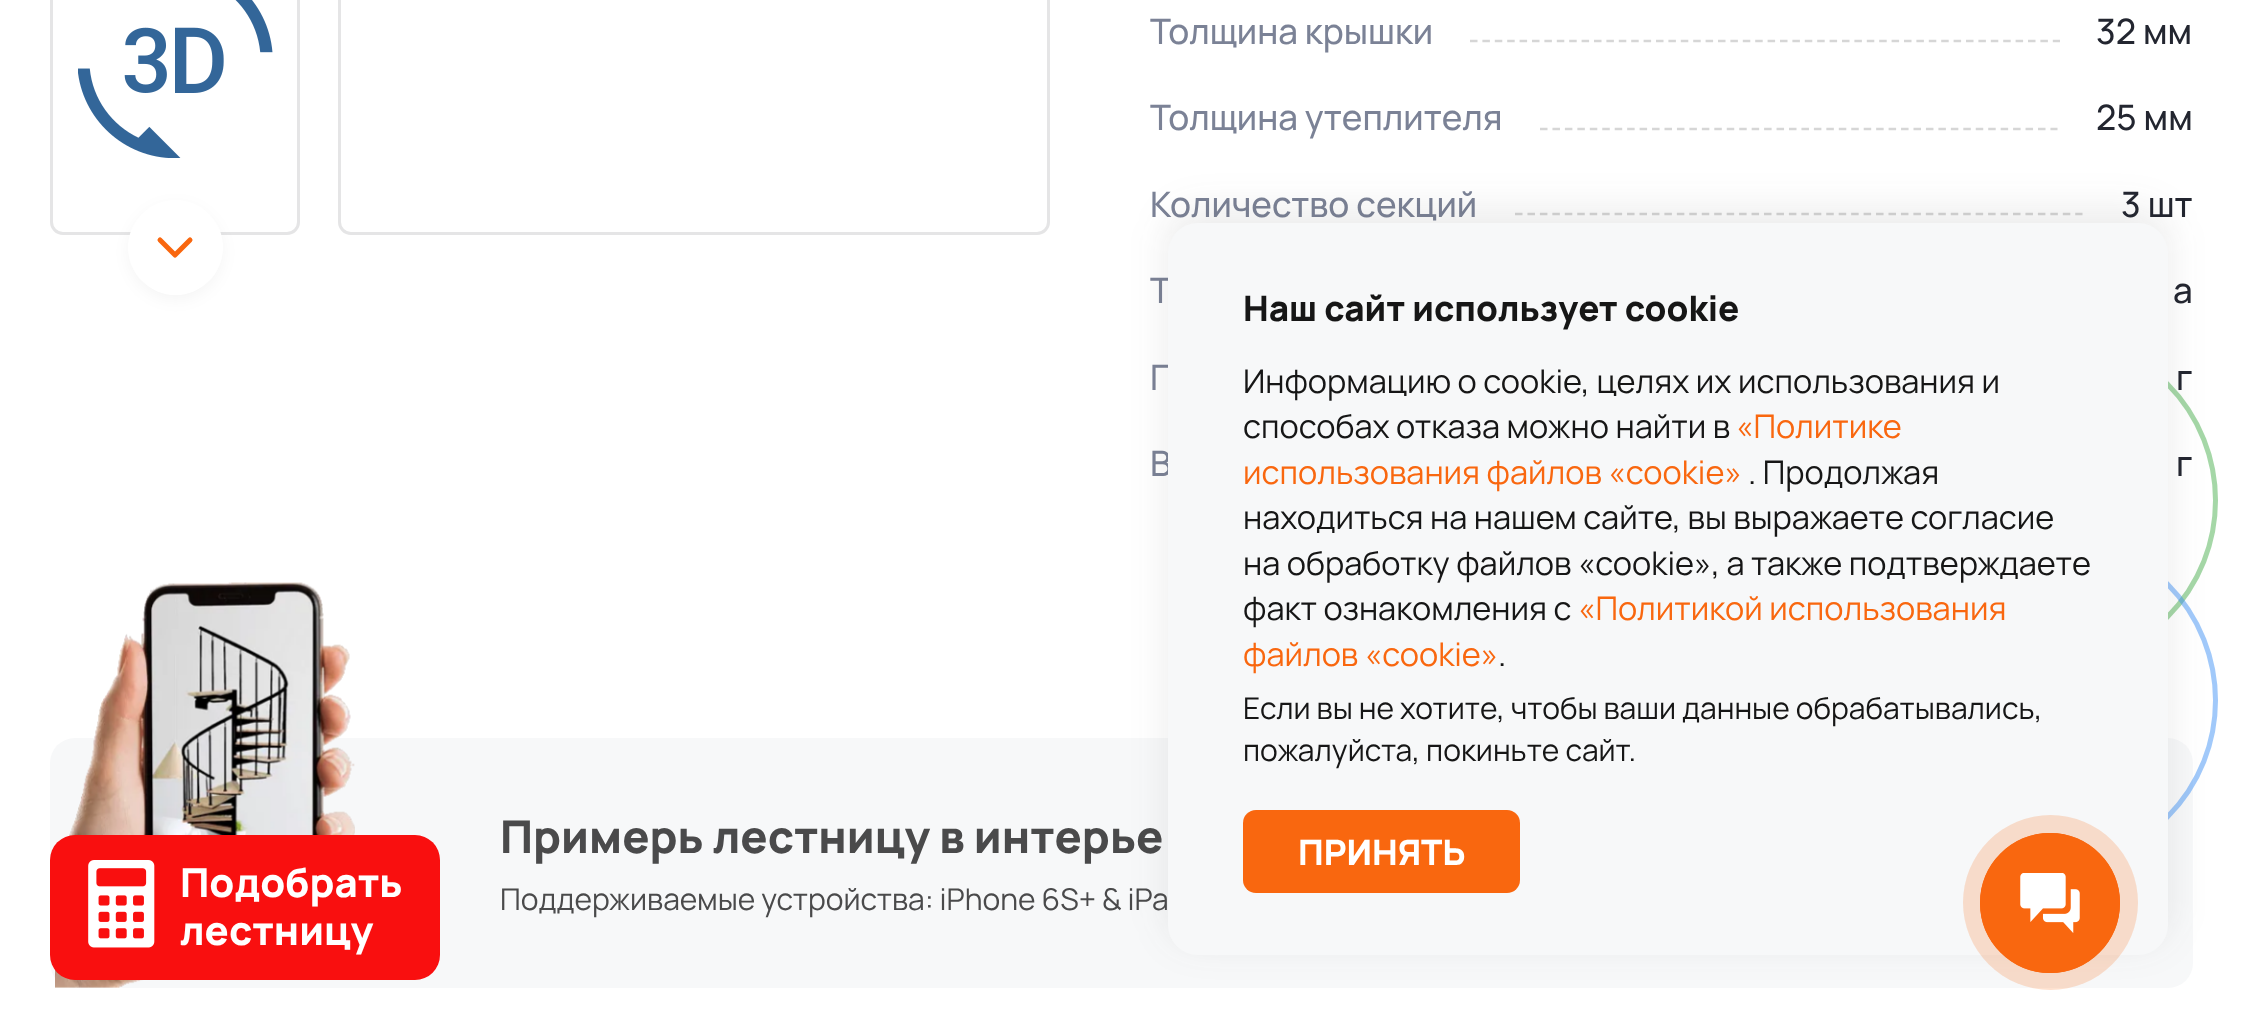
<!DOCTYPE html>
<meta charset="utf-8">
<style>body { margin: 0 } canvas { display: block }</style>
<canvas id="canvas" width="2242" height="1029"></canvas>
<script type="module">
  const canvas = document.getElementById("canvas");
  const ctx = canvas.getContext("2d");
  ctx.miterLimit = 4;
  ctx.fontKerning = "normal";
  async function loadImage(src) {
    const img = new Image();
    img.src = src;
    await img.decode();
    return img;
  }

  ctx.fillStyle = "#ffffff";
  ctx.fillRect(0, 0, 2242, 1029);
  ctx.beginPath();
  ctx.roundRect(51.5, -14.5, 247, 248, 11.5);
  ctx.strokeStyle = "#e5e5e6";
  ctx.lineWidth = 3;
  ctx.stroke();
  ctx.drawImage(await loadImage("img1.png"), 78, 0, 195, 158);
  ctx.fillStyle = "rgba(0, 0, 0, 0.04)";
  ctx.filter = "blur(7.5px)";
  ctx.beginPath();
  ctx.roundRect(128, 205, 95, 95, 47.5);
  ctx.fill();
  ctx.filter = "none";
  ctx.fillStyle = "#ffffff";
  ctx.beginPath();
  ctx.arc(175.5, 247.5, 47.5, 0, Math.PI * 2);
  ctx.fill();
  ctx.beginPath();
  ctx.moveTo(160, 240);
  ctx.lineTo(175, 255);
  ctx.lineTo(190, 240);
  ctx.strokeStyle = "#f9670f";
  ctx.lineWidth = 5;
  ctx.lineCap = "round";
  ctx.lineJoin = "round";
  ctx.stroke();
  ctx.beginPath();
  ctx.roundRect(339.5, -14.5, 709, 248, 11.5);
  ctx.strokeStyle = "#e5e5e6";
  ctx.lineWidth = 3;
  ctx.lineJoin = "miter";
  ctx.stroke();
  ctx.font = "500 35px Manrope";
  ctx.fillStyle = "#7b8296";
  ctx.fillText("Толщина крышки", 1150, 44);
  ctx.beginPath();
  ctx.moveTo(1470, 41);
  ctx.lineTo(2060, 41);
  ctx.strokeStyle = "#d6d6d6";
  ctx.lineWidth = 2.5;
  ctx.lineCap = "butt";
  ctx.setLineDash([7.5, 4.9]);
  ctx.stroke();
  ctx.fillStyle = "#232630";
  ctx.fillText("32 мм", 2096, 44);
  ctx.fillStyle = "#7b8296";
  ctx.fillText("Толщина утеплителя", 1150, 130);
  ctx.beginPath();
  ctx.moveTo(1540, 129);
  ctx.lineTo(2057.5, 129);
  ctx.setLineDash([7.5, 4.95]);
  ctx.stroke();
  ctx.fillStyle = "#232630";
  ctx.fillText("25 мм", 2096, 130);
  ctx.fillStyle = "#7b8296";
  ctx.fillText("Количество секций", 1150, 217);
  ctx.beginPath();
  ctx.moveTo(1515, 214);
  ctx.lineTo(2082.5, 214);
  ctx.stroke();
  ctx.fillStyle = "#232630";
  ctx.fillText("3 шт", 2121, 217);
  ctx.fillStyle = "#7b8296";
  ctx.fillText("Т", 1150, 303);
  ctx.fillStyle = "#232630";
  ctx.fillText("а", 2173, 303);
  ctx.fillStyle = "#7b8296";
  ctx.fillText("Г", 1150, 390);
  ctx.fillStyle = "#232630";
  ctx.fillText("г", 2176, 390);
  ctx.fillStyle = "#7b8296";
  ctx.fillText("В", 1150, 476);
  ctx.fillStyle = "#232630";
  ctx.fillText("г", 2176, 476);
  ctx.fillStyle = "#f7f8f9";
  ctx.beginPath();
  ctx.roundRect(50, 738, 2143, 250, 25);
  ctx.fill();
  ctx.drawImage(await loadImage("img2.png"), 55, 582, 300, 406);
  ctx.font = "800 45px Manrope";
  ctx.fillStyle = "#4a4a4b";
  ctx.fillText("Примерь лестницу в интерье", 500, 853);
  ctx.font = "30px Manrope";
  ctx.fillText("Поддерживаемые устройства: iPhone 6S+ & iPa", 500, 910);
  ctx.beginPath();
  ctx.arc(2050.5, 500.5, 165, 0, Math.PI * 2);
  ctx.strokeStyle = "rgba(76, 175, 80, 0.5)";
  ctx.lineWidth = 5;
  ctx.setLineDash([]);
  ctx.stroke();
  ctx.beginPath();
  ctx.arc(2050.5, 700.5, 165, 0, Math.PI * 2);
  ctx.strokeStyle = "rgba(67, 148, 245, 0.5)";
  ctx.stroke();
  ctx.fillStyle = "rgba(62, 62, 62, 0.1)";
  ctx.filter = "blur(19px)";
  ctx.beginPath();
  ctx.roundRect(1168, 210, 1000, 733, 30);
  ctx.fill();
  ctx.filter = "none";
  ctx.fillStyle = "#f7f8f9";
  ctx.beginPath();
  ctx.roundRect(1168, 223, 1000, 732, 30);
  ctx.fill();
  ctx.font = "800 35px Manrope";
  ctx.fillStyle = "#161616";
  ctx.fillText("Наш сайт использует cookie", 1243, 321);
  ctx.font = "32.5px Manrope";
  ctx.fillText("Информацию о cookie, целях их использования и", 1243, 393);
  ctx.fillText("способах отказа можно найти в", 1243, 438);
  ctx.fillStyle = "#f9670f";
  ctx.fillText("«Политике", 1736, 438);
  ctx.fillText("использования файлов «cookie»", 1243, 484);
  ctx.fillStyle = "#161616";
  ctx.fillText(". Продолжая", 1748, 484);
  ctx.fillText("находиться на нашем сайте, вы выражаете согласие", 1243, 529);
  ctx.fillText("на обработку файлов «cookie», а также подтверждаете", 1243, 575);
  ctx.fillText("факт ознакомления с", 1243, 620);
  ctx.fillStyle = "#f9670f";
  ctx.fillText("«Политикой использования", 1578, 620);
  ctx.fillText("файлов «cookie»", 1243, 666);
  ctx.fillStyle = "#161616";
  ctx.fillText(".", 1498, 666);
  ctx.font = "30px Manrope";
  ctx.fillText("Если вы не хотите, чтобы ваши данные обрабатывались,", 1243, 719);
  ctx.fillText("пожалуйста, покиньте сайт.", 1243, 761);
  ctx.fillStyle = "#f9670f";
  ctx.beginPath();
  ctx.roundRect(1243, 810, 277, 83, 13);
  ctx.fill();
  ctx.font = "800 35px Manrope";
  ctx.fillStyle = "#ffffff";
  ctx.fillText("ПРИНЯТЬ", 1298, 865);
  ctx.fillStyle = "#f90f0f";
  ctx.beginPath();
  ctx.roundRect(50, 835, 390, 145, 25);
  ctx.fill();
  ctx.drawImage(await loadImage("img3.png"), 88, 860, 67, 88);
  ctx.font = "800 40px Manrope";
  ctx.fillStyle = "#ffffff";
  ctx.fillText("Подобрать", 180, 897);
  ctx.fillText("лестницу", 180, 945);
  ctx.fillStyle = "rgba(249, 103, 15, 0.2)";
  ctx.beginPath();
  ctx.arc(2050.5, 902.5, 87.5, 0, Math.PI * 2);
  ctx.fill();
  ctx.beginPath();
  ctx.arc(2050, 903, 69, 0, Math.PI * 2);
  ctx.strokeStyle = "#f9670f";
  ctx.lineWidth = 2;
  ctx.stroke();
  ctx.fillStyle = "#f9670f";
  ctx.beginPath();
  ctx.arc(2050, 903, 70, 0, Math.PI * 2);
  ctx.fill();
  ctx.drawImage(await loadImage("img4.png"), 2020, 873, 60, 60);
</script>
